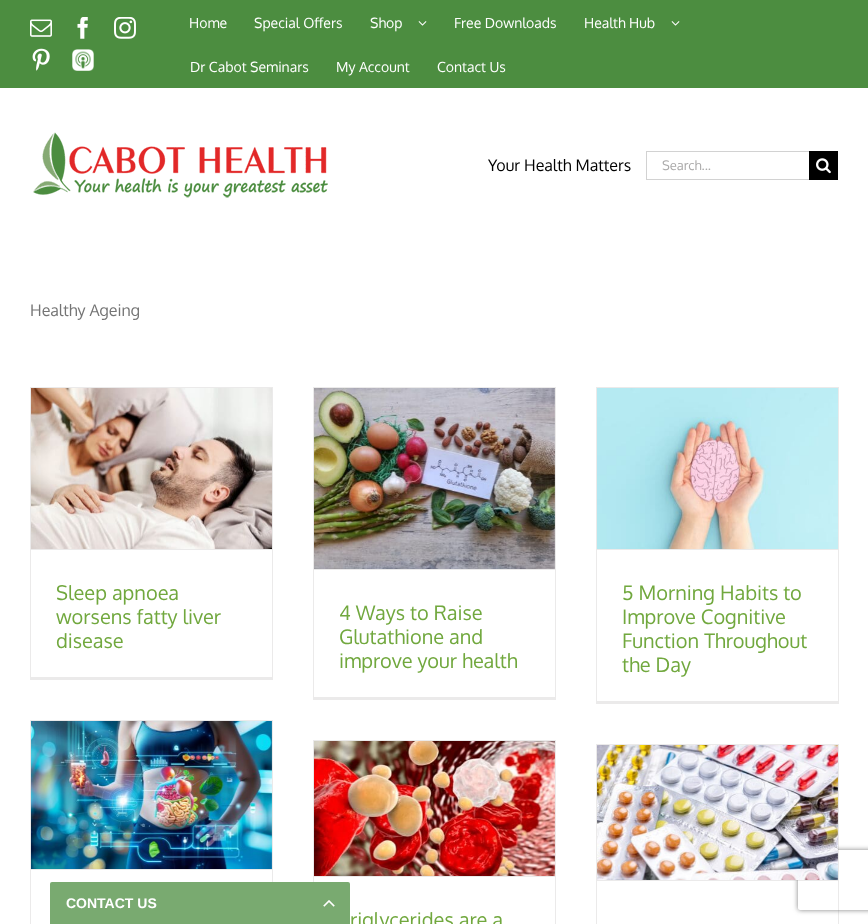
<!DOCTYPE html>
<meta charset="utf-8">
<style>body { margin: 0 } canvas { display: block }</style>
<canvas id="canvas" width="868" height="924"></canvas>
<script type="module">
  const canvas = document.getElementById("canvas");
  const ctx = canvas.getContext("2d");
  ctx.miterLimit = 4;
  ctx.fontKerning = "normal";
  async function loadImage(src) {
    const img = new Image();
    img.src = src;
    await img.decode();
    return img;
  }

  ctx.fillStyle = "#ffffff";
  ctx.fillRect(0, 0, 868, 924);
  ctx.fillStyle = "#4c8d40";
  ctx.fillRect(0, 0, 868, 88);
  ctx.drawImage(await loadImage("img1.png"), 30, 19, 22, 18);
  ctx.drawImage(await loadImage("img2.png"), 77, 17, 11, 22);
  ctx.drawImage(await loadImage("img3.png"), 114, 17, 22, 22);
  ctx.drawImage(await loadImage("img4.png"), 32, 48, 18, 23);
  ctx.drawImage(await loadImage("img5.png"), 72, 49, 22, 22);
  ctx.font = "14px Oxygen";
  ctx.fillStyle = "#ffffff";
  ctx.fillText("Home", 189, 28);
  ctx.fillText("Special Offers", 254, 28);
  ctx.fillText("Shop", 370, 28);
  ctx.drawImage(await loadImage("img6.png"), 418, 21, 9, 5);
  ctx.fillText("Free Downloads", 454, 28);
  ctx.fillText("Health Hub", 584, 28);
  ctx.drawImage(await loadImage("img6.png"), 671, 21, 9, 5);
  ctx.fillText("Dr Cabot Seminars", 190, 72);
  ctx.fillText("My Account", 336, 72);
  ctx.fillText("Contact Us", 437, 72);
  ctx.drawImage(await loadImage("img7.png"), 33, 132, 295, 66);
  ctx.font = "16px Oxygen";
  ctx.fillStyle = "#000000";
  ctx.fillText("Your Health Matters", 488, 171);
  ctx.fillStyle = "#d2d2d2";
  ctx.fillRect(646, 151, 163, 1);
  ctx.fillRect(646, 179, 163, 1);
  ctx.fillRect(646, 151, 1, 29);
  ctx.font = "13px Oxygen";
  ctx.fillStyle = "#aaa9a9";
  ctx.fillText("Search...", 662, 170);
  ctx.fillStyle = "#000000";
  ctx.fillRect(809, 151, 29, 29);
  ctx.drawImage(await loadImage("img8.png"), 816, 158, 15, 16);
  ctx.font = "16px Oxygen";
  ctx.fillStyle = "#747474";
  ctx.fillText("Healthy Ageing", 30, 316);
  ctx.fillStyle = "#ebeaea";
  ctx.fillRect(30, 387, 243, 1);
  ctx.fillRect(272, 387, 1, 293);
  ctx.fillRect(30, 677, 243, 3);
  ctx.fillRect(30, 387, 1, 293);
  ctx.fillRect(31, 549, 241, 1);
  ctx.drawImage(await loadImage("img9.png"), 31, 388, 241, 161);
  ctx.font = "20px Oxygen";
  ctx.fillStyle = "#71a83e";
  ctx.fillText("Sleep apnoea", 56, 600);
  ctx.fillText("worsens fatty liver", 56, 624);
  ctx.fillText("disease", 56, 648);
  ctx.fillStyle = "#ebeaea";
  ctx.fillRect(313, 387, 243, 1);
  ctx.fillRect(555, 387, 1, 313);
  ctx.fillRect(313, 697, 243, 3);
  ctx.fillRect(313, 387, 1, 313);
  ctx.fillRect(314, 569, 241, 1);
  ctx.drawImage(await loadImage("img10.png"), 314, 388, 241, 181);
  ctx.fillStyle = "#71a83e";
  ctx.fillText("4 Ways to Raise", 339, 620);
  ctx.fillText("Glutathione and", 339, 644);
  ctx.fillText("improve your health", 339, 668);
  ctx.fillStyle = "#ebeaea";
  ctx.fillRect(596, 387, 243, 1);
  ctx.fillRect(838, 387, 1, 317);
  ctx.fillRect(596, 701, 243, 3);
  ctx.fillRect(596, 387, 1, 317);
  ctx.fillRect(597, 549, 241, 1);
  ctx.drawImage(await loadImage("img11.png"), 597, 388, 241, 161);
  ctx.fillStyle = "#71a83e";
  ctx.fillText("5 Morning Habits to", 622, 600);
  ctx.fillText("Improve Cognitive", 622, 624);
  ctx.fillText("Function Throughout", 622, 648);
  ctx.fillText("the Day", 622, 672);
  ctx.fillStyle = "#ebeaea";
  ctx.fillRect(30, 720, 243, 1);
  ctx.fillRect(272, 720, 1, 162);
  ctx.fillRect(30, 720, 1, 204);
  ctx.fillRect(31, 869, 241, 1);
  ctx.drawImage(await loadImage("img12.png"), 31, 721, 241, 148);
  ctx.fillRect(313, 740, 243, 1);
  ctx.fillRect(555, 740, 1, 184);
  ctx.fillRect(313, 740, 1, 142);
  ctx.fillRect(314, 876, 241, 1);
  ctx.drawImage(await loadImage("img13.png"), 314, 741, 241, 135);
  ctx.fillStyle = "#71a83e";
  ctx.fillText("riglycerides are a", 350, 927);
  ctx.fillStyle = "#ebeaea";
  ctx.fillRect(596, 744, 243, 1);
  ctx.fillRect(838, 744, 1, 180);
  ctx.fillRect(596, 744, 1, 180);
  ctx.fillRect(597, 880, 241, 1);
  ctx.save();
  ctx.beginPath();
  ctx.moveTo(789, 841);
  ctx.lineTo(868, 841);
  ctx.lineTo(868, 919);
  ctx.lineTo(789, 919);
  ctx.closePath();
  ctx.moveTo(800, 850);
  ctx.lineTo(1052, 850);
  ctx.bezierCurveTo(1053, 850, 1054, 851, 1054, 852);
  ctx.lineTo(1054, 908);
  ctx.bezierCurveTo(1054, 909, 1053, 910, 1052, 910);
  ctx.lineTo(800, 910);
  ctx.bezierCurveTo(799, 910, 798, 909, 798, 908);
  ctx.lineTo(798, 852);
  ctx.bezierCurveTo(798, 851, 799, 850, 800, 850);
  ctx.closePath();
  ctx.clip("evenodd");
  ctx.fillStyle = "#808080";
  ctx.filter = "blur(2.5px)";
  ctx.beginPath();
  ctx.roundRect(798, 850, 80, 60, 2);
  ctx.fill();
  ctx.filter = "none";
  ctx.restore();
  ctx.drawImage(await loadImage("img14.png"), 597, 745, 241, 135);
  ctx.fillStyle = "#79aa70";
  ctx.beginPath();
  ctx.roundRect(50, 882, 300, 42, [2, 2, 0, 0]);
  ctx.fill();
  ctx.font = "bold 14px Liberation Sans";
  ctx.fillStyle = "#ffffff";
  ctx.fillText("CONTACT US", 66, 908);
  ctx.drawImage(await loadImage("img15.png"), 323, 900, 12, 7);
</script>
